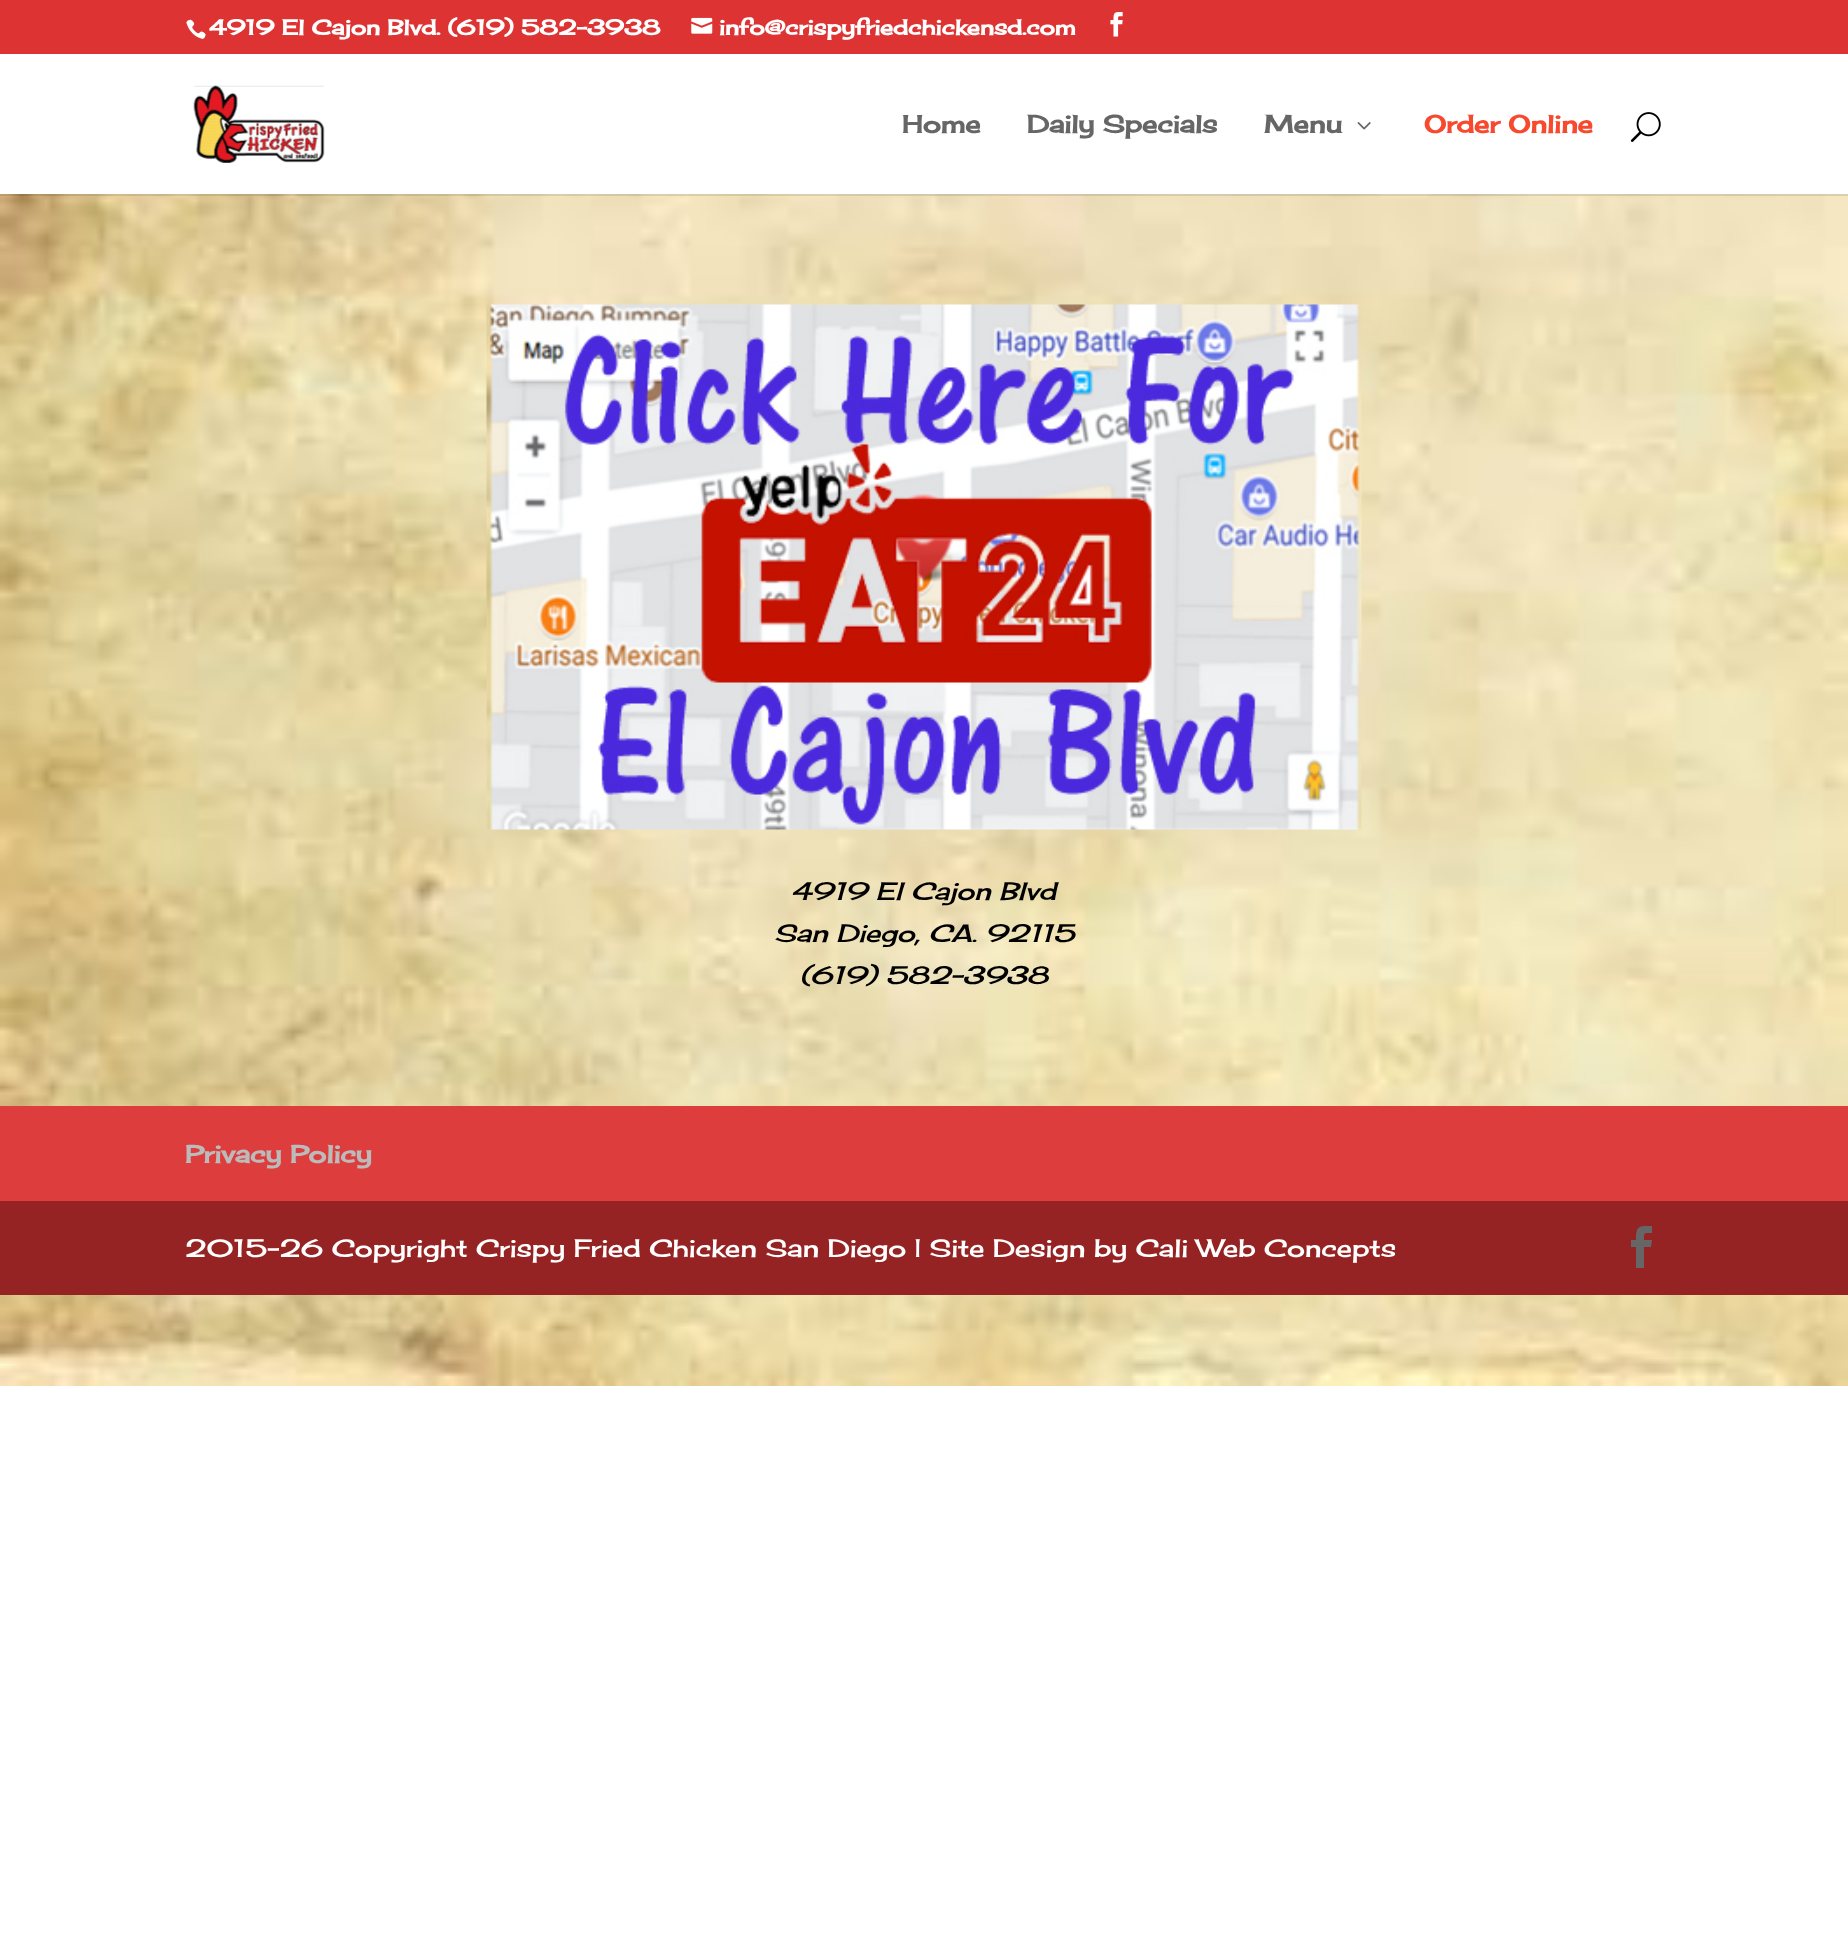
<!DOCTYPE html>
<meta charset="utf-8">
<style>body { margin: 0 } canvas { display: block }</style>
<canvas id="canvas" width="1848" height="1940"></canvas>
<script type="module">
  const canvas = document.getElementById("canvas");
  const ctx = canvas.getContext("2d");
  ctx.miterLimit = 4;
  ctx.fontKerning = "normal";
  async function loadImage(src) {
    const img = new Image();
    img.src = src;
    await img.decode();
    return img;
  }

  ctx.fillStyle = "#ffffff";
  ctx.fillRect(0, 0, 1848, 1940);
  ctx.drawImage(await loadImage("img1.png"), 0, 194, 1848, 1192);
  ctx.fillStyle = "#dd3333";
  ctx.fillRect(0, 0, 1848, 54);
  ctx.drawImage(await loadImage("img2.png"), 186, 19, 20, 20);
  ctx.font = "bold 21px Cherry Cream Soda";
  ctx.fillStyle = "#ffffff";
  ctx.fillText("4919 El Cajon Blvd. (619) 582-3938", 209, 35);
  ctx.drawImage(await loadImage("img3.png"), 691, 17, 22, 17);
  ctx.fillText("info@crispyfriedchickensd.com", 719, 35);
  ctx.drawImage(await loadImage("img4.png"), 1110, 12, 13, 25);
  ctx.fillStyle = "rgba(0, 0, 0, 0.1)";
  ctx.fillRect(0, 194, 1848, 2);
  ctx.drawImage(await loadImage("img5.png"), 193, 85, 132, 78);
  ctx.font = "bold 24.5px Cherry Cream Soda";
  ctx.fillStyle = "#666666";
  ctx.fillText("Home", 902, 133);
  ctx.fillText("Daily Specials", 1027, 133);
  ctx.fillText("Menu", 1264, 133);
  ctx.drawImage(await loadImage("img6.png"), 1357, 122, 14, 8);
  ctx.fillStyle = "#f7492e";
  ctx.fillText("Order Online", 1424, 133);
  ctx.drawImage(await loadImage("img7.png"), 1630, 112, 31, 30);
  ctx.drawImage(await loadImage("img8.png"), 486, 304, 876, 526);
  ctx.font = "italic 24.5px Cherry Cream Soda";
  ctx.fillStyle = "#000000";
  ctx.fillText("4919 El Cajon Blvd", 791, 900);
  ctx.fillText("San Diego, CA. 92115", 774, 942);
  ctx.fillText("(619) 582-3938", 800, 984);
  ctx.fillStyle = "#de3d3d";
  ctx.fillRect(0, 1106, 1848, 95);
  ctx.font = "bold 24.5px Cherry Cream Soda";
  ctx.fillStyle = "#bbbbbb";
  ctx.fillText("Privacy Policy", 185, 1163);
  ctx.fillStyle = "#962323";
  ctx.fillRect(0, 1201, 1848, 94);
  ctx.font = "24.5px Cherry Cream Soda";
  ctx.fillStyle = "#ffffff";
  ctx.fillText("2015-26 Copyright Crispy Fried Chicken San Diego | Site Design by Cali Web Concepts", 185, 1257);
  ctx.fillStyle = "#666666";
  ctx.beginPath();
  ctx.moveTo(1636, 1268);
  ctx.lineTo(1644, 1268);
  ctx.lineTo(1644, 1247);
  ctx.lineTo(1651, 1247);
  ctx.lineTo(1652, 1240);
  ctx.lineTo(1644, 1240);
  ctx.bezierCurveTo(1644, 1232, 1644, 1233, 1652, 1233);
  ctx.lineTo(1652, 1226);
  ctx.bezierCurveTo(1639, 1226, 1636, 1225, 1636, 1240);
  ctx.lineTo(1631, 1240);
  ctx.lineTo(1631, 1247);
  ctx.lineTo(1636, 1247);
  ctx.closePath();
  ctx.fill();
</script>
